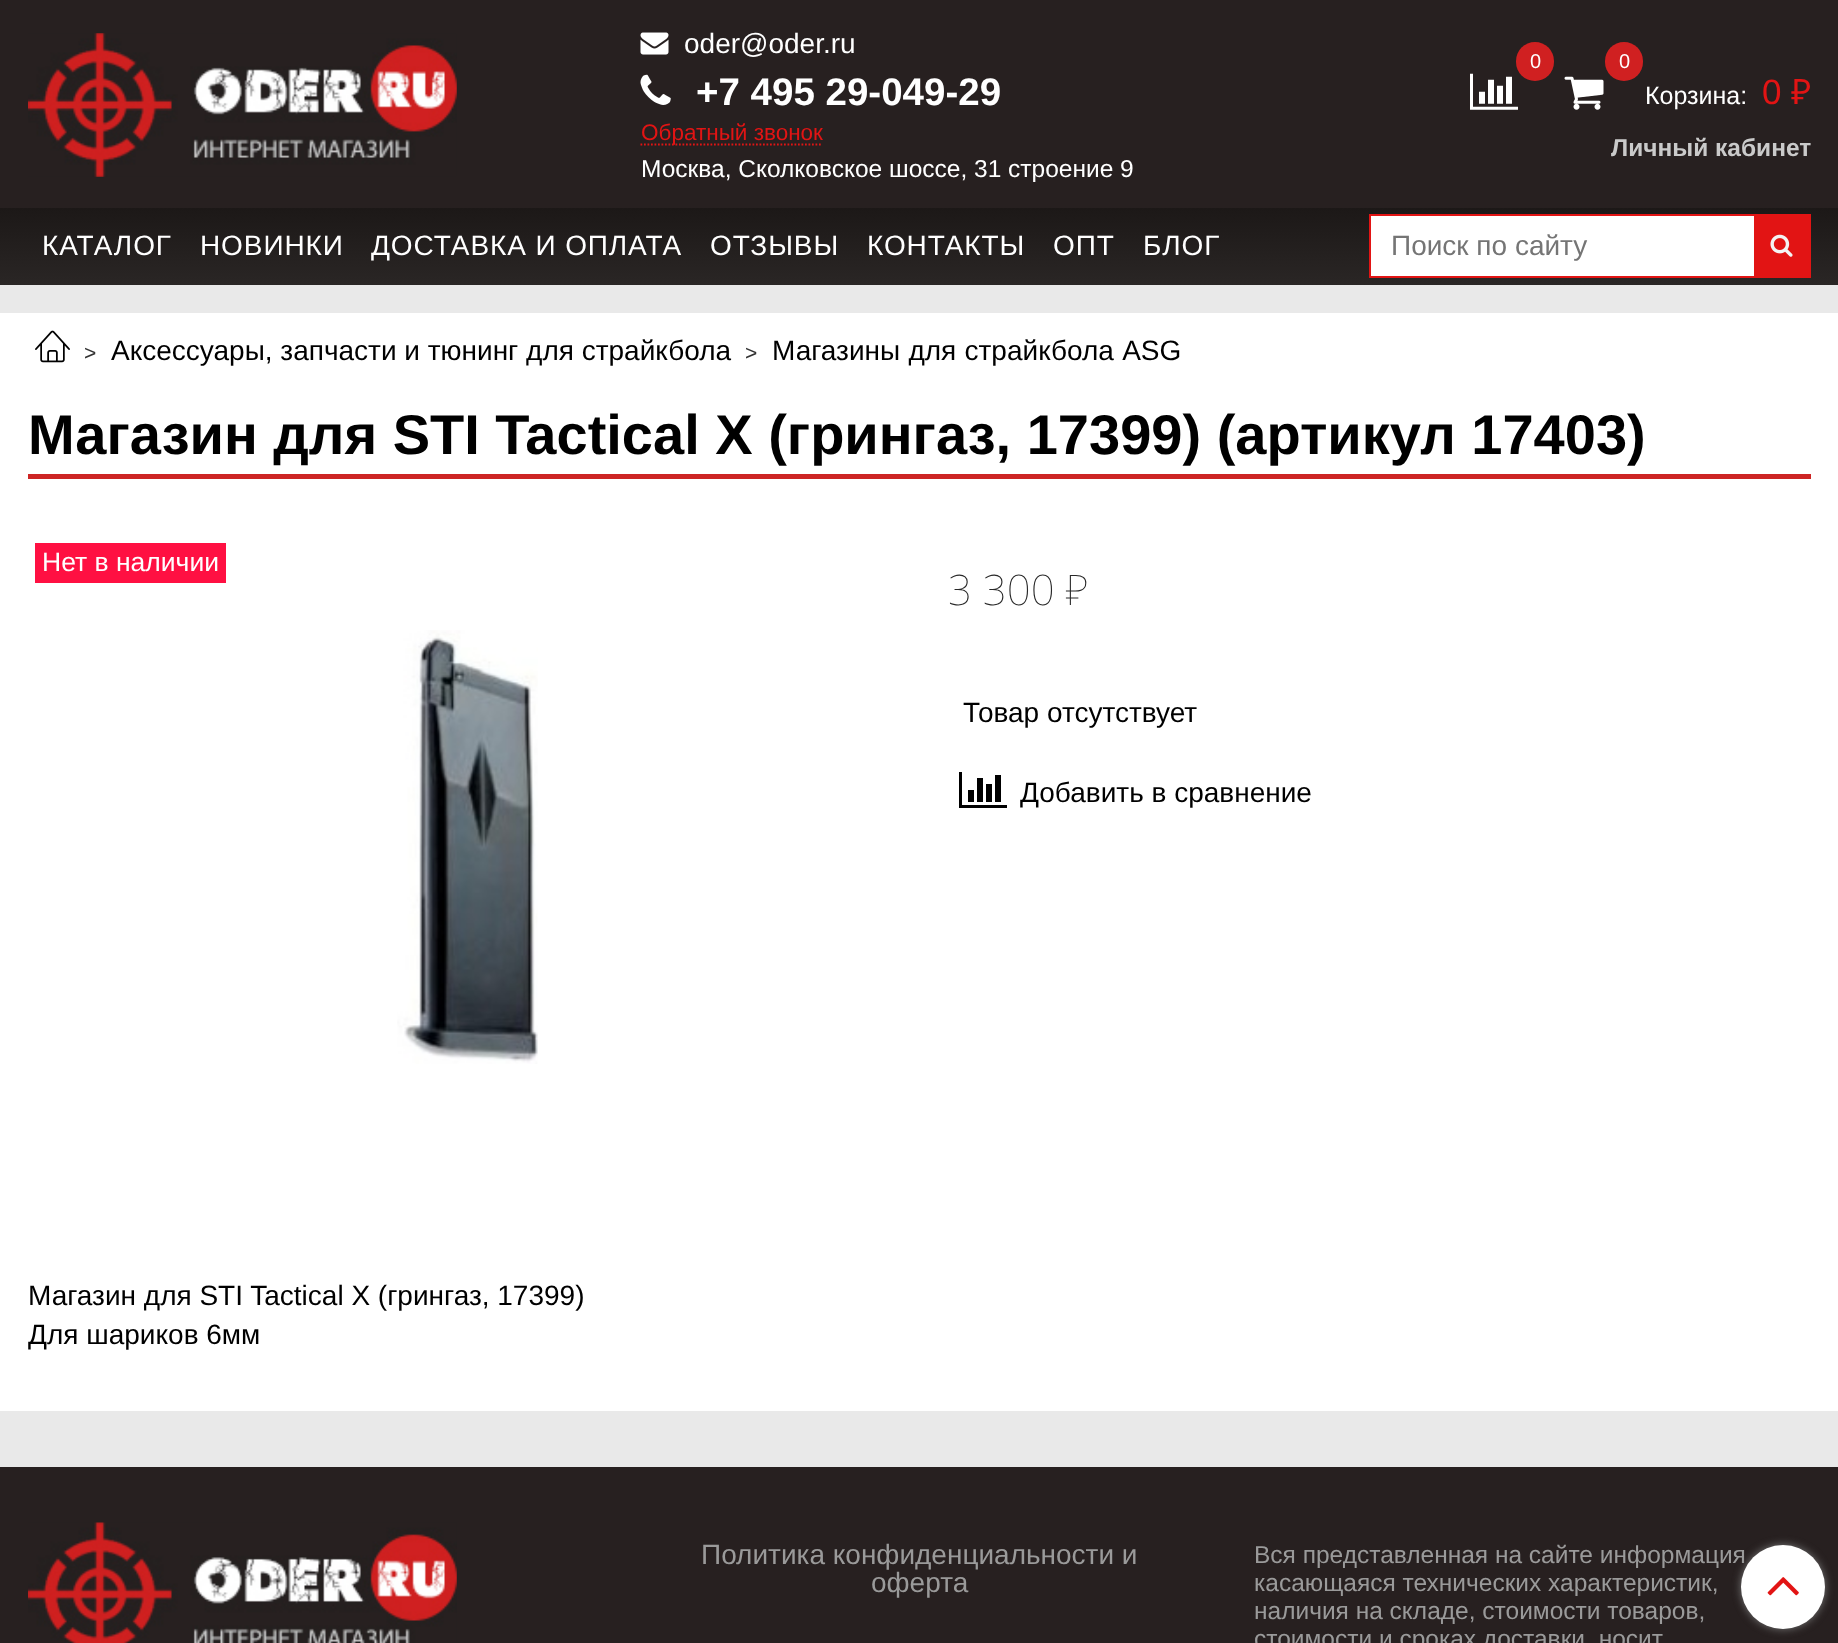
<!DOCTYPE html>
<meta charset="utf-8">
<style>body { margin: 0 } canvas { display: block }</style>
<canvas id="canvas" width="1838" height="1643"></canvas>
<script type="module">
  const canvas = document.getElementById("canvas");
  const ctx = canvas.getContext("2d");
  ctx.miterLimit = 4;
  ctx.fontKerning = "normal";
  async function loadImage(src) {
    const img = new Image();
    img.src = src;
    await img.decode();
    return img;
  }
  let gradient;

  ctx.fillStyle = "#e9e9e9";
  ctx.fillRect(0, 0, 1838, 1643);
  ctx.fillStyle = "#272020";
  ctx.fillRect(0, 0, 1838, 208);
  ctx.drawImage(await loadImage("img1.png"), 28, 33, 429, 144);
  ctx.drawImage(await loadImage("img2.png"), 640, 32, 29, 23);
  ctx.font = "28px Liberation Sans";
  ctx.fillStyle = "#ffffff";
  ctx.fillText("oder@oder.ru", 684, 53);
  ctx.drawImage(await loadImage("img3.png"), 640, 74, 31, 31);
  ctx.font = "bold 38.5px Liberation Sans";
  ctx.fillText("+7 495 29-049-29", 696, 105);
  ctx.beginPath();
  ctx.moveTo(640.5, 144.5);
  ctx.lineTo(822.5, 144.5);
  ctx.strokeStyle = "#e21414";
  ctx.lineWidth = 1.8;
  ctx.setLineDash([1.75, 1.75]);
  ctx.stroke();
  ctx.font = "22.5px Liberation Sans";
  ctx.fillStyle = "#e21414";
  ctx.fillText("Обратный звонок", 641, 140);
  ctx.font = "24.5px Liberation Sans";
  ctx.fillStyle = "#ffffff";
  ctx.fillText("Москва, Сколковское шоссе, 31 строение 9", 641, 177);
  ctx.drawImage(await loadImage("img4.png"), 1470, 73, 48, 37);
  ctx.fillStyle = "#d02021";
  ctx.beginPath();
  ctx.roundRect(1516, 42, 38, 39, 19);
  ctx.fill();
  ctx.font = "20px Liberation Sans";
  ctx.fillStyle = "#ffffff";
  ctx.fillText("0", 1530, 68);
  ctx.fillStyle = "#d02021";
  ctx.beginPath();
  ctx.roundRect(1605, 42, 38, 39, 19);
  ctx.fill();
  ctx.fillStyle = "#ffffff";
  ctx.fillText("0", 1619, 68);
  ctx.drawImage(await loadImage("img5.png"), 1564, 76, 40, 34);
  ctx.font = "25px Liberation Sans";
  ctx.fillText("Корзина:", 1645, 104);
  ctx.font = "35px Liberation Sans";
  ctx.fillStyle = "#e21414";
  ctx.fillText("0", 1762, 104);
  ctx.font = "35px Noto Sans";
  ctx.fillText("₽", 1791, 104);
  ctx.font = "bold 24.5px Liberation Sans";
  ctx.fillStyle = "#cacaca";
  ctx.fillText("Личный кабинет", 1611, 156);
  gradient = ctx.createLinearGradient(920, 208, 920, 285);
  gradient.addColorStop(0, "#1c1817");
  gradient.addColorStop(1, "#2a2625");
  ctx.fillStyle = gradient;
  ctx.fillRect(0, 208, 1838, 77);
  ctx.letterSpacing = "0.9px";
  ctx.font = "28px Liberation Sans";
  ctx.fillStyle = "#ffffff";
  ctx.fillText("КАТАЛОГ", 42, 255);
  ctx.fillText("НОВИНКИ", 200, 255);
  ctx.fillText("ДОСТАВКА И ОПЛАТА", 371, 255);
  ctx.fillText("ОТЗЫВЫ", 710, 255);
  ctx.fillText("КОНТАКТЫ", 867, 255);
  ctx.fillText("ОПТ", 1053, 255);
  ctx.fillText("БЛОГ", 1143, 255);
  ctx.fillRect(1371, 216, 383, 60);
  ctx.lineWidth = 2;
  ctx.setLineDash([]);
  ctx.strokeRect(1370, 215, 440, 62);
  ctx.letterSpacing = "0px";
  ctx.fillStyle = "#757575";
  ctx.fillText("Поиск по сайту", 1391, 255);
  ctx.fillStyle = "#e21414";
  ctx.beginPath();
  ctx.roundRect(1754, 215, 56, 62, [0, 2.5, 2.5, 0]);
  ctx.fill();
  ctx.drawImage(await loadImage("img6.png"), 1770, 234, 23, 23);
  ctx.fillStyle = "#ffffff";
  ctx.fillRect(0, 313, 1838, 1098);
  ctx.drawImage(await loadImage("img7.png"), 35, 330, 35, 33);
  ctx.font = "21px Liberation Sans";
  ctx.fillStyle = "#333333";
  ctx.fillText(">", 84, 360);
  ctx.font = "28px Liberation Sans";
  ctx.fillStyle = "#000000";
  ctx.fillText("Аксессуары, запчасти и тюнинг для страйкбола", 111, 360);
  ctx.font = "21px Liberation Sans";
  ctx.fillStyle = "#333333";
  ctx.fillText(">", 745, 360);
  ctx.wordSpacing = "0.5px";
  ctx.font = "28px Liberation Sans";
  ctx.fillStyle = "#000000";
  ctx.fillText("Магазины для страйкбола ASG", 772, 360);
  ctx.fillStyle = "#cd2524";
  ctx.fillRect(28, 474, 1783, 5);
  ctx.wordSpacing = "0px";
  ctx.font = "bold 56px Liberation Sans";
  ctx.fillStyle = "#000000";
  ctx.fillText("Магазин для STI Tactical X (грингаз, 17399) (артикул 17403)", 28, 454);
  ctx.fillStyle = "#ff1042";
  ctx.fillRect(35, 543, 191, 40);
  ctx.font = "26.5px Liberation Sans";
  ctx.fillStyle = "#ffffff";
  ctx.fillText("Нет в наличии", 42, 571);
  ctx.drawImage(await loadImage("img8.png"), 397, 630, 141, 434);
  ctx.font = "100 42px Noto Sans";
  ctx.fillStyle = "#282828";
  ctx.fillText("3 300 ₽", 948, 605);
  ctx.font = "28px Liberation Sans";
  ctx.fillStyle = "#000000";
  ctx.fillText("Товар отсутствует", 963, 722);
  ctx.drawImage(await loadImage("img9.png"), 959, 772, 48, 36);
  ctx.fillText("Добавить в сравнение", 1020, 802);
  ctx.fillText("Магазин для STI Tactical X (грингаз, 17399)", 28, 1305);
  ctx.fillText("Для шариков 6мм", 28, 1344);
  ctx.fillStyle = "#272020";
  ctx.fillRect(0, 1467, 1838, 176);
  ctx.drawImage(await loadImage("img10.png"), 28, 1522, 429, 121);
  ctx.fillStyle = "#9a9a9a";
  ctx.fillText("Политика конфиденциальности и", 701, 1564);
  ctx.fillText("оферта", 871, 1592);
  ctx.font = "24.5px Liberation Sans";
  ctx.fillText("Вся представленная на сайте информация", 1254, 1563);
  ctx.fillText("касающаяся технических характеристик,", 1254, 1591);
  ctx.fillText("наличия на складе, стоимости товаров,", 1254, 1619);
  ctx.fillText("стоимости и сроках доставки, носит", 1254, 1647);
  ctx.fillStyle = "#777777";
  ctx.filter = "blur(4.5px)";
  ctx.beginPath();
  ctx.roundRect(1741, 1545, 84, 84, 42);
  ctx.fill();
  ctx.filter = "none";
  ctx.fillStyle = "#ffffff";
  ctx.beginPath();
  ctx.arc(1783, 1587, 42, 0, Math.PI * 2);
  ctx.fill();
  ctx.drawImage(await loadImage("img11.png"), 1767, 1577, 32, 19);
</script>
